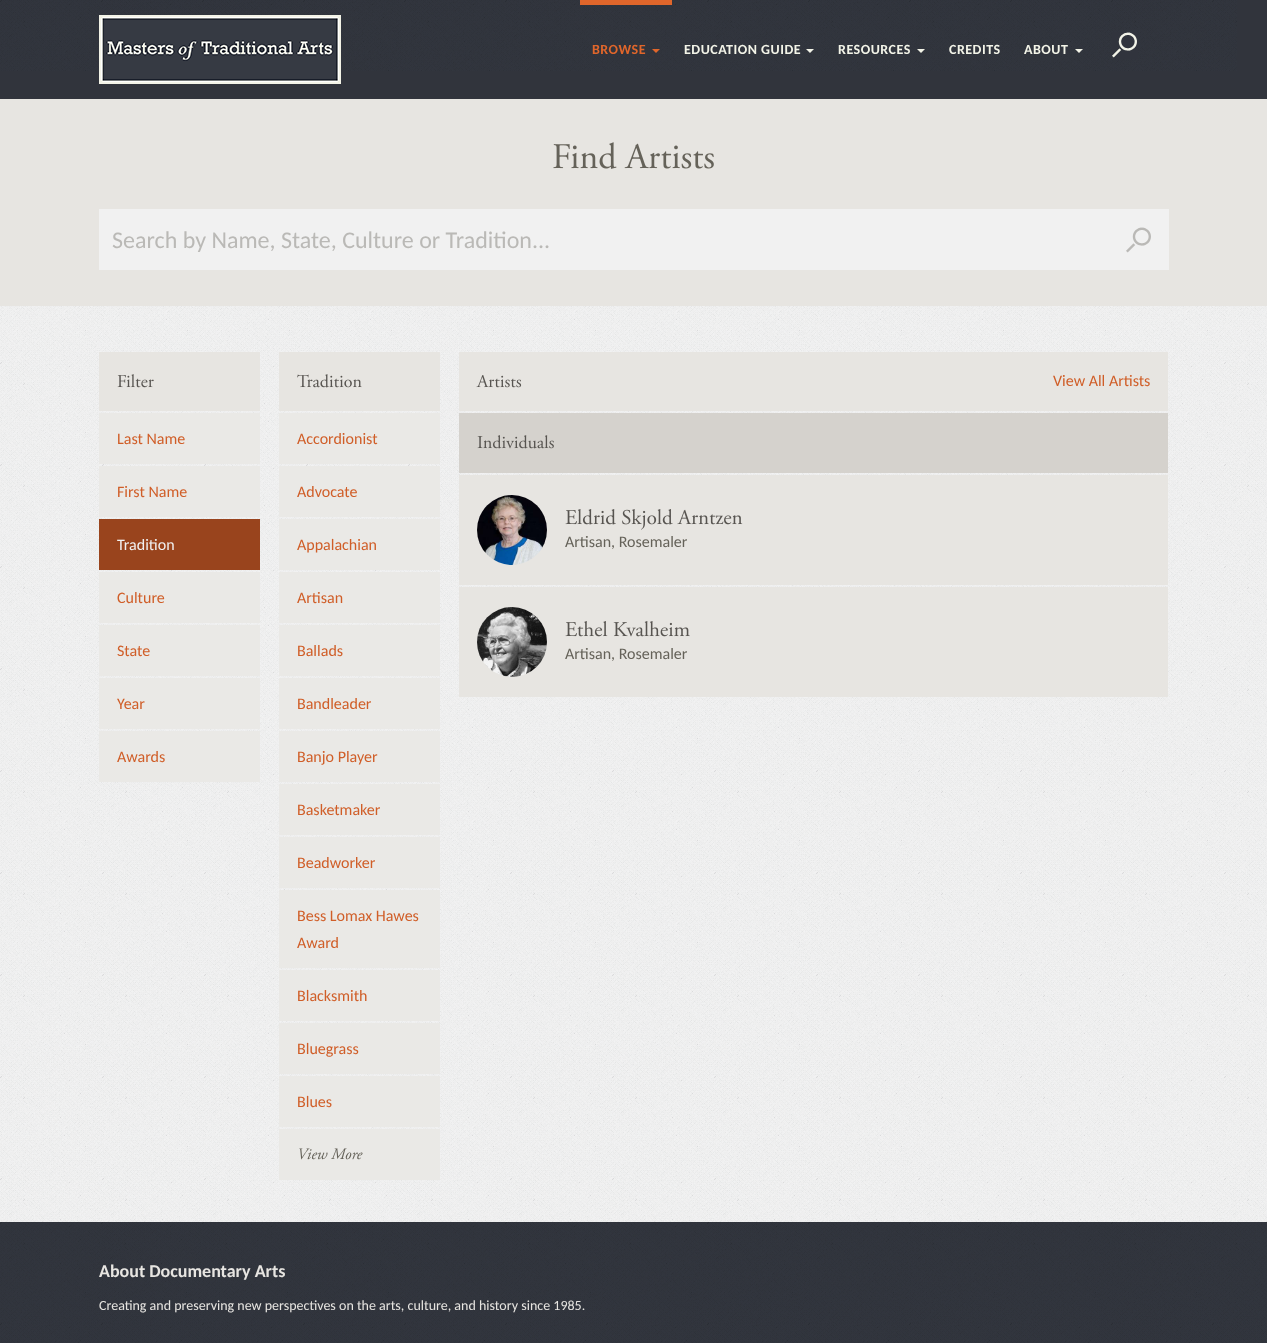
<!DOCTYPE html>
<meta charset="utf-8">
<style>body { margin: 0 } canvas { display: block }</style>
<canvas id="canvas" width="1267" height="1343"></canvas>
<script type="module">
  const canvas = document.getElementById("canvas");
  const ctx = canvas.getContext("2d");
  ctx.miterLimit = 4;
  ctx.fontKerning = "normal";
  async function loadImage(src) {
    const img = new Image();
    img.src = src;
    await img.decode();
    return img;
  }

  ctx.fillStyle = "#ffffff";
  ctx.fillRect(0, 0, 1267, 1343);
  ctx.drawImage(await loadImage("img1.png"), 0, 306, 1267, 916);
  ctx.fillStyle = "#31343c";
  ctx.fillRect(0, 0, 1267, 99);
  ctx.drawImage(await loadImage("img2.png"), 0, 0, 1237, 71);
  ctx.drawImage(await loadImage("img3.png"), 99, 15, 242, 69);
  ctx.fillStyle = "#e0662b";
  ctx.fillRect(580, 0, 92, 5);
  ctx.letterSpacing = "0.5px";
  ctx.font = "bold 14px Carlito";
  ctx.fillText("BROWSE", 592, 54);
  ctx.beginPath();
  ctx.moveTo(652, 49);
  ctx.lineTo(660, 49);
  ctx.lineTo(656, 53);
  ctx.closePath();
  ctx.fill();
  ctx.fillStyle = "#f3f4e8";
  ctx.fillText("EDUCATION GUIDE", 684, 54);
  ctx.beginPath();
  ctx.moveTo(806, 49);
  ctx.lineTo(814, 49);
  ctx.lineTo(810, 53);
  ctx.closePath();
  ctx.fill();
  ctx.fillText("RESOURCES", 838, 54);
  ctx.beginPath();
  ctx.moveTo(917, 49);
  ctx.lineTo(925, 49);
  ctx.lineTo(921, 53);
  ctx.closePath();
  ctx.fill();
  ctx.fillText("CREDITS", 949, 54);
  ctx.fillText("ABOUT", 1024, 54);
  ctx.beginPath();
  ctx.moveTo(1075, 49);
  ctx.lineTo(1083, 49);
  ctx.lineTo(1079, 53);
  ctx.closePath();
  ctx.fill();
  ctx.drawImage(await loadImage("img4.png"), 1112, 32, 26, 27);
  ctx.fillStyle = "#e7e5e1";
  ctx.fillRect(0, 99, 1267, 207);
  ctx.drawImage(await loadImage("img5.png"), 553, 142, 161, 27);
  ctx.fillStyle = "#f1f1f1";
  ctx.fillRect(99, 209, 1070, 61);
  ctx.drawImage(await loadImage("img6.png"), 1126, 227, 25, 26);
  ctx.letterSpacing = "0px";
  ctx.font = "24px Carlito";
  ctx.fillStyle = "#bab9b6";
  ctx.fillText("Search by Name, State, Culture or Tradition...", 112, 248);
  ctx.fillStyle = "#e7e5e1";
  ctx.fillRect(99, 352, 161, 59);
  ctx.drawImage(await loadImage("img7.png"), 117, 374, 37, 14);
  ctx.fillStyle = "#eae9e6";
  ctx.fillRect(99, 413, 161, 51);
  ctx.font = "16px Carlito";
  ctx.fillStyle = "#d05e28";
  ctx.fillText("Last Name", 117, 444);
  ctx.fillStyle = "#eae9e6";
  ctx.fillRect(99, 466, 161, 51);
  ctx.fillStyle = "#d05e28";
  ctx.fillText("First Name", 117, 497);
  ctx.fillStyle = "#99441d";
  ctx.fillRect(99, 519, 161, 51);
  ctx.fillStyle = "#f1f1f1";
  ctx.fillText("Tradition", 117, 550);
  ctx.fillStyle = "#eae9e6";
  ctx.fillRect(99, 572, 161, 51);
  ctx.fillStyle = "#d05e28";
  ctx.fillText("Culture", 117, 603);
  ctx.fillStyle = "#eae9e6";
  ctx.fillRect(99, 625, 161, 51);
  ctx.fillStyle = "#d05e28";
  ctx.fillText("State", 117, 656);
  ctx.fillStyle = "#eae9e6";
  ctx.fillRect(99, 678, 161, 51);
  ctx.fillStyle = "#d05e28";
  ctx.fillText("Year", 117, 709);
  ctx.fillStyle = "#eae9e6";
  ctx.fillRect(99, 731, 161, 51);
  ctx.fillStyle = "#d05e28";
  ctx.fillText("Awards", 117, 762);
  ctx.fillStyle = "#e7e5e1";
  ctx.fillRect(279, 352, 161, 59);
  ctx.drawImage(await loadImage("img8.png"), 297, 374, 65, 14);
  ctx.fillStyle = "#eae9e6";
  ctx.fillRect(279, 413, 161, 51);
  ctx.fillStyle = "#d05e28";
  ctx.fillText("Accordionist", 297, 444);
  ctx.fillStyle = "#eae9e6";
  ctx.fillRect(279, 466, 161, 51);
  ctx.fillStyle = "#d05e28";
  ctx.fillText("Advocate", 297, 497);
  ctx.fillStyle = "#eae9e6";
  ctx.fillRect(279, 519, 161, 51);
  ctx.fillStyle = "#d05e28";
  ctx.fillText("Appalachian", 297, 550);
  ctx.fillStyle = "#eae9e6";
  ctx.fillRect(279, 572, 161, 51);
  ctx.fillStyle = "#d05e28";
  ctx.fillText("Artisan", 297, 603);
  ctx.fillStyle = "#eae9e6";
  ctx.fillRect(279, 625, 161, 51);
  ctx.fillStyle = "#d05e28";
  ctx.fillText("Ballads", 297, 656);
  ctx.fillStyle = "#eae9e6";
  ctx.fillRect(279, 678, 161, 51);
  ctx.fillStyle = "#d05e28";
  ctx.fillText("Bandleader", 297, 709);
  ctx.fillStyle = "#eae9e6";
  ctx.fillRect(279, 731, 161, 51);
  ctx.fillStyle = "#d05e28";
  ctx.fillText("Banjo Player", 297, 762);
  ctx.fillStyle = "#eae9e6";
  ctx.fillRect(279, 784, 161, 51);
  ctx.fillStyle = "#d05e28";
  ctx.fillText("Basketmaker", 297, 815);
  ctx.fillStyle = "#eae9e6";
  ctx.fillRect(279, 837, 161, 51);
  ctx.fillStyle = "#d05e28";
  ctx.fillText("Beadworker", 297, 868);
  ctx.fillStyle = "#eae9e6";
  ctx.fillRect(279, 890, 161, 78);
  ctx.fillStyle = "#d05e28";
  ctx.fillText("Bess Lomax Hawes", 297, 921);
  ctx.fillText("Award", 297, 948);
  ctx.fillStyle = "#eae9e6";
  ctx.fillRect(279, 970, 161, 51);
  ctx.fillStyle = "#d05e28";
  ctx.fillText("Blacksmith", 297, 1001);
  ctx.fillStyle = "#eae9e6";
  ctx.fillRect(279, 1023, 161, 51);
  ctx.fillStyle = "#d05e28";
  ctx.fillText("Bluegrass", 297, 1054);
  ctx.fillStyle = "#eae9e6";
  ctx.fillRect(279, 1076, 161, 51);
  ctx.fillStyle = "#d05e28";
  ctx.fillText("Blues", 297, 1107);
  ctx.fillStyle = "#eae9e6";
  ctx.fillRect(279, 1129, 161, 51);
  ctx.font = "italic 16px Adobe Garamond";
  ctx.fillStyle = "#656259";
  ctx.fillText("View More", 297, 1159);
  ctx.fillStyle = "#e7e5e1";
  ctx.fillRect(459, 352, 709, 59);
  ctx.drawImage(await loadImage("img9.png"), 476, 375, 46, 13);
  ctx.font = "16px Carlito";
  ctx.fillStyle = "#d05e28";
  ctx.fillText("View All Artists", 1053, 386);
  ctx.fillStyle = "#d5d2cd";
  ctx.fillRect(459, 413, 709, 60);
  ctx.drawImage(await loadImage("img10.png"), 477, 435, 77, 14);
  ctx.fillStyle = "#e7e5e1";
  ctx.fillRect(459, 475, 709, 110);
  ctx.drawImage(await loadImage("img11.png"), 477, 495, 70, 70);
  ctx.drawImage(await loadImage("img12.png"), 565, 509, 178, 21);
  ctx.fillStyle = "#656259";
  ctx.fillText("Artisan, Rosemaler", 565, 547);
  ctx.fillStyle = "#e7e5e1";
  ctx.fillRect(459, 587, 709, 110);
  ctx.drawImage(await loadImage("img13.png"), 477, 607, 70, 70);
  ctx.drawImage(await loadImage("img14.png"), 565, 621, 125, 16);
  ctx.fillStyle = "#656259";
  ctx.fillText("Artisan, Rosemaler", 565, 659);
  ctx.drawImage(await loadImage("img15.png"), 0, 1222, 1267, 121);
  ctx.font = "bold 18px Carlito";
  ctx.fillStyle = "#e7e5e1";
  ctx.fillText("About Documentary Arts", 99, 1277);
  ctx.font = "14px Carlito";
  ctx.fillText("Creating and preserving new perspectives on the arts, culture, and history since 1985.", 99, 1310);
</script>
